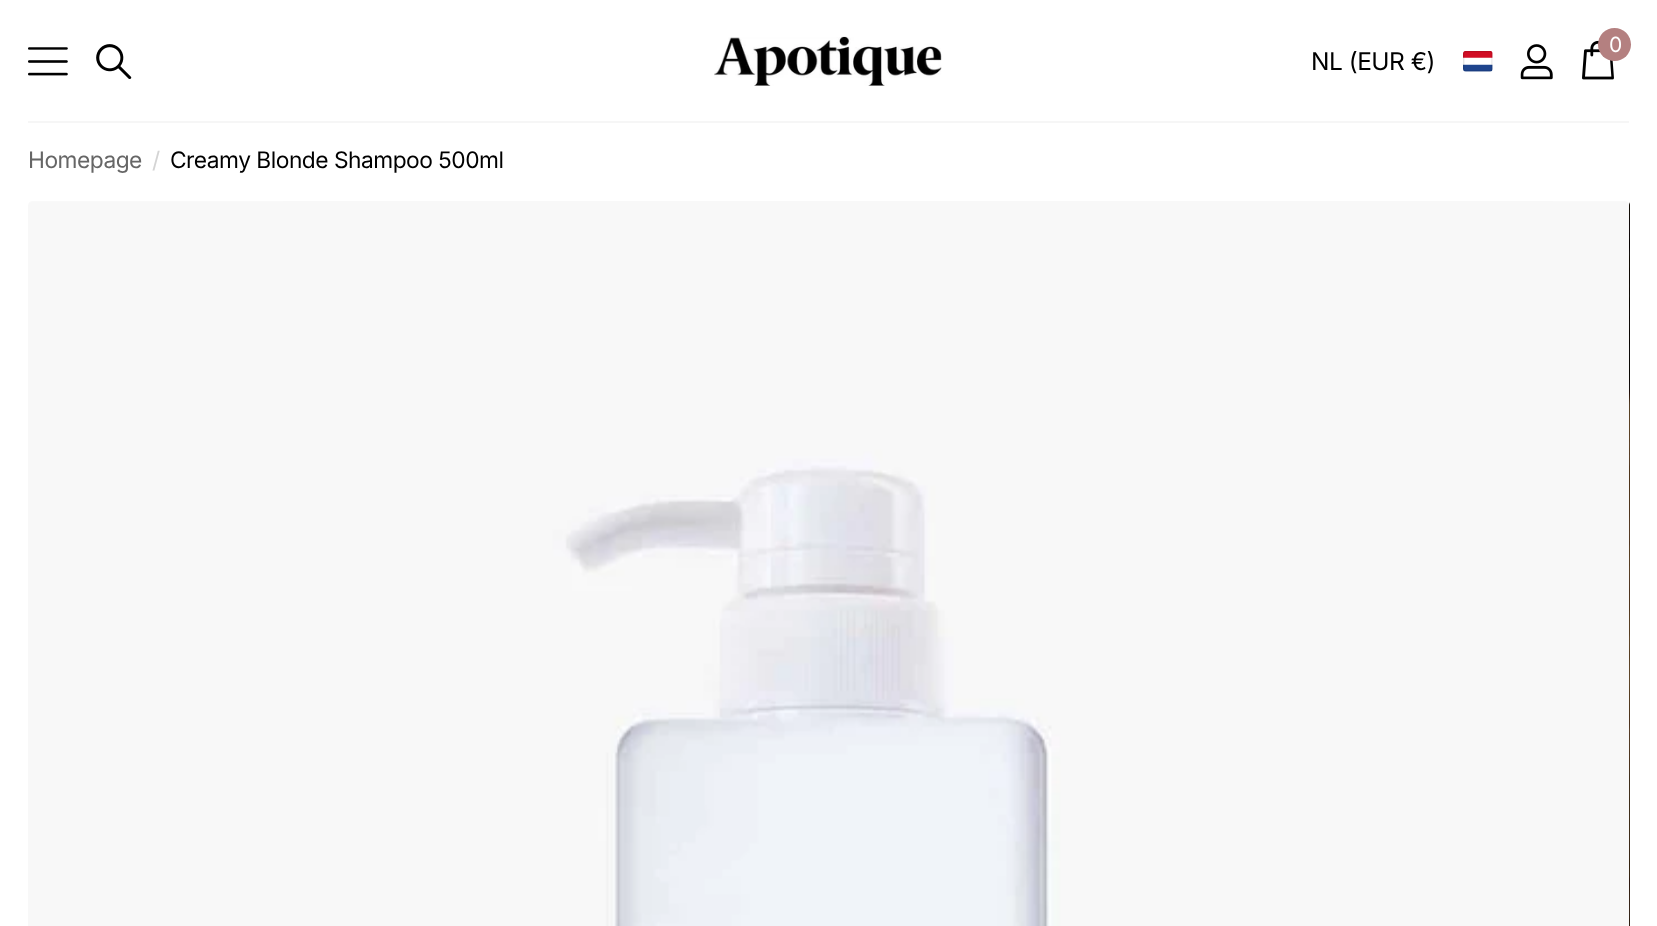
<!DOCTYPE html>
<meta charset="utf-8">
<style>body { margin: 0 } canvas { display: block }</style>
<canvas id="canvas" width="1657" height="926"></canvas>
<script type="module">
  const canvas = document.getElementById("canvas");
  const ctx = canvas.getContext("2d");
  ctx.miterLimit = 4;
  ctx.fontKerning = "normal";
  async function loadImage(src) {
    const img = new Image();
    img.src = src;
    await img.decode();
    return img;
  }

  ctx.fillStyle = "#ffffff";
  ctx.fillRect(0, 0, 1657, 926);
  ctx.drawImage(await loadImage("img1.png"), 28, 47, 40, 29);
  ctx.drawImage(await loadImage("img2.png"), 96, 44, 36, 35);
  ctx.drawImage(await loadImage("img3.png"), 714, 36, 228, 50);
  ctx.letterSpacing = "-0.5px";
  ctx.font = "24.5px Inter";
  ctx.fillStyle = "#000000";
  ctx.fillText("NL (EUR €)", 1311, 70);
  ctx.drawImage(await loadImage("img4.png"), 1463, 51, 30, 21);
  ctx.drawImage(await loadImage("img5.png"), 1520, 44, 33, 36);
  ctx.drawImage(await loadImage("img6.png"), 1582, 40, 32, 40);
  ctx.fillStyle = "#b48080";
  ctx.beginPath();
  ctx.arc(1614.5, 44.5, 16.5, 0, Math.PI * 2);
  ctx.fill();
  ctx.letterSpacing = "0px";
  ctx.font = "21px Inter";
  ctx.fillStyle = "#ffffff";
  ctx.fillText("0", 1609, 52);
  ctx.fillStyle = "#f6f6f6";
  ctx.fillRect(28, 121, 1601, 2);
  ctx.letterSpacing = "-0.5px";
  ctx.font = "22.75px Inter";
  ctx.fillStyle = "#666666";
  ctx.fillText("Homepage", 28, 168);
  ctx.letterSpacing = "0px";
  ctx.fillStyle = "#d4d4d4";
  ctx.fillText("/", 152, 168);
  ctx.letterSpacing = "-0.5px";
  ctx.fillStyle = "#000000";
  ctx.fillText("Creamy Blonde Shampoo 500ml", 170, 168);
  ctx.drawImage(await loadImage("img7.png"), 28, 201, 1601, 725);
  ctx.drawImage(await loadImage("img8.png"), 1629, 202, 1, 724);
</script>
